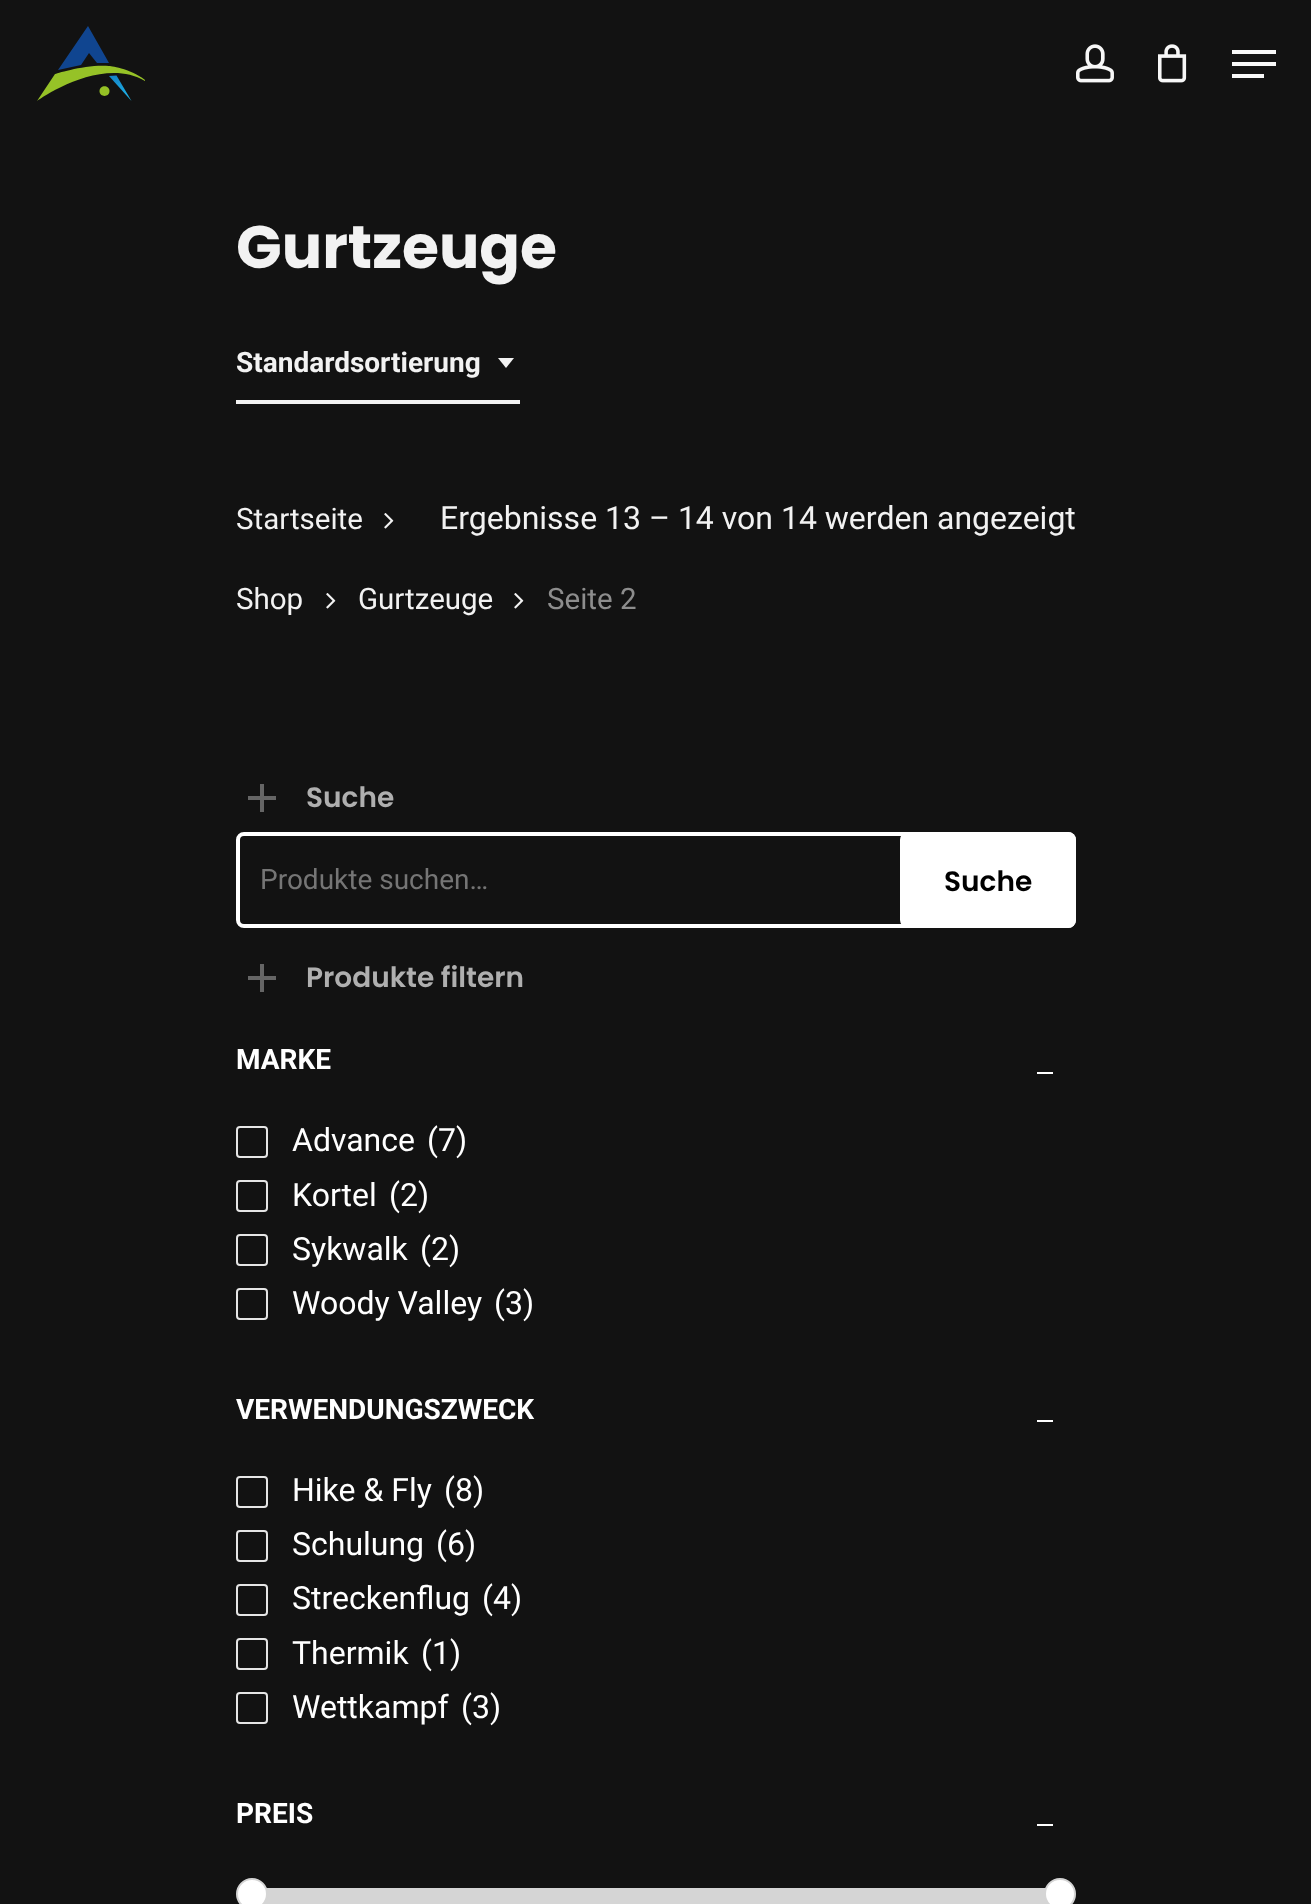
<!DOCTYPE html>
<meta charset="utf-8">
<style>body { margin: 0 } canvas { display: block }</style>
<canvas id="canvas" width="1311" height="1904"></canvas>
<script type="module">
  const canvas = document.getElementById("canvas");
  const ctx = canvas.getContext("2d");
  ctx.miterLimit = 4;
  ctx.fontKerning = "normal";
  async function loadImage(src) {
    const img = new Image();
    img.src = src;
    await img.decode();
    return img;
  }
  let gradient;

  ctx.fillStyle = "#121212";
  ctx.fillRect(0, 0, 1311, 1904);
  ctx.fillStyle = "#96c227";
  ctx.beginPath();
  ctx.moveTo(145, 81);
  ctx.lineTo(145, 80);
  ctx.bezierCurveTo(130, 68, 109, 66, 109, 66);
  ctx.bezierCurveTo(86, 64, 55, 74, 55, 74);
  ctx.lineTo(37, 101);
  ctx.bezierCurveTo(37, 101, 101, 55, 145, 81);
  ctx.closePath();
  ctx.fill();
  gradient = ctx.createLinearGradient(120, 101, 121, 38);
  gradient.addColorStop(0, "#1fbbee");
  gradient.addColorStop(0.5, "#1276bc");
  gradient.addColorStop(1, "#104590");
  ctx.fillStyle = gradient;
  ctx.beginPath();
  ctx.moveTo(131.5, 101);
  ctx.lineTo(116.5, 75.5);
  ctx.lineTo(109, 76);
  ctx.closePath();
  ctx.fill();
  gradient = ctx.createLinearGradient(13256, 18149, 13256, 418);
  gradient.addColorStop(0, "#1fbbee");
  gradient.addColorStop(0.5, "#1276bc");
  gradient.addColorStop(1, "#104590");
  ctx.fillStyle = gradient;
  ctx.beginPath();
  ctx.moveTo(89, 53);
  ctx.lineTo(97, 63);
  ctx.lineTo(109, 63);
  ctx.lineTo(88, 26);
  ctx.lineTo(58, 70);
  ctx.lineTo(81, 65);
  ctx.closePath();
  ctx.fill();
  ctx.fillStyle = "#95c125";
  ctx.beginPath();
  ctx.moveTo(99.5, 91);
  ctx.bezierCurveTo(99.5, 84.5, 109.5, 84.5, 109.5, 91);
  ctx.bezierCurveTo(109.5, 97.5, 99.5, 97.5, 99.5, 91);
  ctx.fill();
  ctx.drawImage(await loadImage("img1.png"), 1076, 44, 38, 39);
  ctx.drawImage(await loadImage("img2.png"), 1158, 44, 29, 39);
  ctx.fillStyle = "#f7f7f7";
  ctx.fillRect(1232, 50, 44, 4);
  ctx.fillRect(1232, 74, 32, 4);
  ctx.fillRect(1232, 62, 44, 4);
  ctx.font = "bold 60px Poppins";
  ctx.fillStyle = "#f2f2f2";
  ctx.fillText("Gurtzeuge", 236, 268);
  ctx.fillRect(236, 400, 284, 4);
  ctx.font = "bold 28px Roboto";
  ctx.fillText("Standardsortierung", 236, 372);
  ctx.beginPath();
  ctx.moveTo(498, 358);
  ctx.lineTo(514, 358);
  ctx.lineTo(506, 368);
  ctx.closePath();
  ctx.fill();
  ctx.font = "29.5px Roboto";
  ctx.fillText("Startseite", 236, 529);
  ctx.drawImage(await loadImage("img3.png"), 384, 513, 10, 16);
  ctx.fillText("Shop", 236, 609);
  ctx.drawImage(await loadImage("img3.png"), 326, 593, 10, 16);
  ctx.fillText("Gurtzeuge", 358, 609);
  ctx.drawImage(await loadImage("img3.png"), 514, 593, 10, 16);
  ctx.fillStyle = "#8d8d8d";
  ctx.fillText("Seite 2", 547, 609);
  ctx.font = "32px Roboto";
  ctx.fillStyle = "#f2f2f2";
  ctx.fillText("Ergebnisse 13 – 14 von 14 werden angezeigt", 440, 529);
  ctx.fillStyle = "#656565";
  ctx.fillRect(260, 784, 4, 28);
  ctx.font = "600 28px Poppins";
  ctx.fillStyle = "#afafaf";
  ctx.fillText("Suche", 306, 807);
  ctx.fillStyle = "#656565";
  ctx.fillRect(248, 796, 28, 4);
  ctx.beginPath();
  ctx.roundRect(238, 834, 836, 92, 6);
  ctx.strokeStyle = "#ffffff";
  ctx.lineWidth = 4;
  ctx.stroke();
  ctx.font = "28px Roboto";
  ctx.fillStyle = "#757575";
  ctx.fillText("Produkte suchen…", 260, 889);
  ctx.fillStyle = "#ffffff";
  ctx.beginPath();
  ctx.roundRect(900, 832, 176, 96, 8);
  ctx.fill();
  ctx.font = "600 28px Poppins";
  ctx.fillStyle = "#000000";
  ctx.fillText("Suche", 944, 891);
  ctx.fillStyle = "#656565";
  ctx.fillRect(260, 964, 4, 28);
  ctx.fillStyle = "#afafaf";
  ctx.fillText("Produkte filtern", 306, 987);
  ctx.fillStyle = "#656565";
  ctx.fillRect(248, 976, 28, 4);
  ctx.font = "bold 28px Roboto";
  ctx.fillStyle = "#ffffff";
  ctx.fillText("MARKE", 236, 1069);
  ctx.fillRect(1037, 1072, 16, 2);
  ctx.beginPath();
  ctx.roundRect(237, 1127, 30, 30, 3);
  ctx.strokeStyle = "#e5e5e5";
  ctx.lineWidth = 2;
  ctx.stroke();
  ctx.font = "32px Roboto";
  ctx.fillText("Advance", 292, 1151);
  ctx.fillText("(7)", 427, 1151);
  ctx.beginPath();
  ctx.roundRect(237, 1181, 30, 30, 3);
  ctx.stroke();
  ctx.fillText("Kortel", 292, 1206);
  ctx.fillText("(2)", 389, 1206);
  ctx.beginPath();
  ctx.roundRect(237, 1235, 30, 30, 3);
  ctx.stroke();
  ctx.fillText("Sykwalk", 292, 1260);
  ctx.fillText("(2)", 420, 1260);
  ctx.beginPath();
  ctx.roundRect(237, 1289, 30, 30, 3);
  ctx.stroke();
  ctx.fillText("Woody Valley", 292, 1314);
  ctx.fillText("(3)", 494, 1314);
  ctx.font = "bold 28px Roboto";
  ctx.fillText("VERWENDUNGSZWECK", 236, 1419);
  ctx.fillRect(1037, 1420, 16, 2);
  ctx.beginPath();
  ctx.roundRect(237, 1477, 30, 30, 3);
  ctx.stroke();
  ctx.font = "32px Roboto";
  ctx.fillText("Hike & Fly", 292, 1501);
  ctx.fillText("(8)", 444, 1501);
  ctx.beginPath();
  ctx.roundRect(237, 1531, 30, 30, 3);
  ctx.stroke();
  ctx.fillText("Schulung", 292, 1555);
  ctx.fillText("(6)", 436, 1555);
  ctx.beginPath();
  ctx.roundRect(237, 1585, 30, 30, 3);
  ctx.stroke();
  ctx.fillText("Streckenflug", 292, 1609);
  ctx.fillText("(4)", 482, 1609);
  ctx.beginPath();
  ctx.roundRect(237, 1639, 30, 30, 3);
  ctx.stroke();
  ctx.fillText("Thermik", 292, 1664);
  ctx.fillText("(1)", 421, 1664);
  ctx.beginPath();
  ctx.roundRect(237, 1693, 30, 30, 3);
  ctx.stroke();
  ctx.fillText("Wettkampf", 292, 1718);
  ctx.fillText("(3)", 461, 1718);
  ctx.font = "bold 28px Roboto";
  ctx.fillText("PREIS", 236, 1823);
  ctx.fillRect(1037, 1824, 16, 2);
  ctx.fillStyle = "#d5d5d5";
  ctx.fillRect(264, 1888, 784, 16);
  ctx.fillStyle = "#ffffff";
  ctx.beginPath();
  ctx.arc(252, 1894, 15, 0, Math.PI * 2);
  ctx.fill();
  ctx.strokeStyle = "#d5d5d5";
  ctx.stroke();
  ctx.beginPath();
  ctx.arc(1060, 1894, 15, 0, Math.PI * 2);
  ctx.fill();
  ctx.stroke();
</script>
